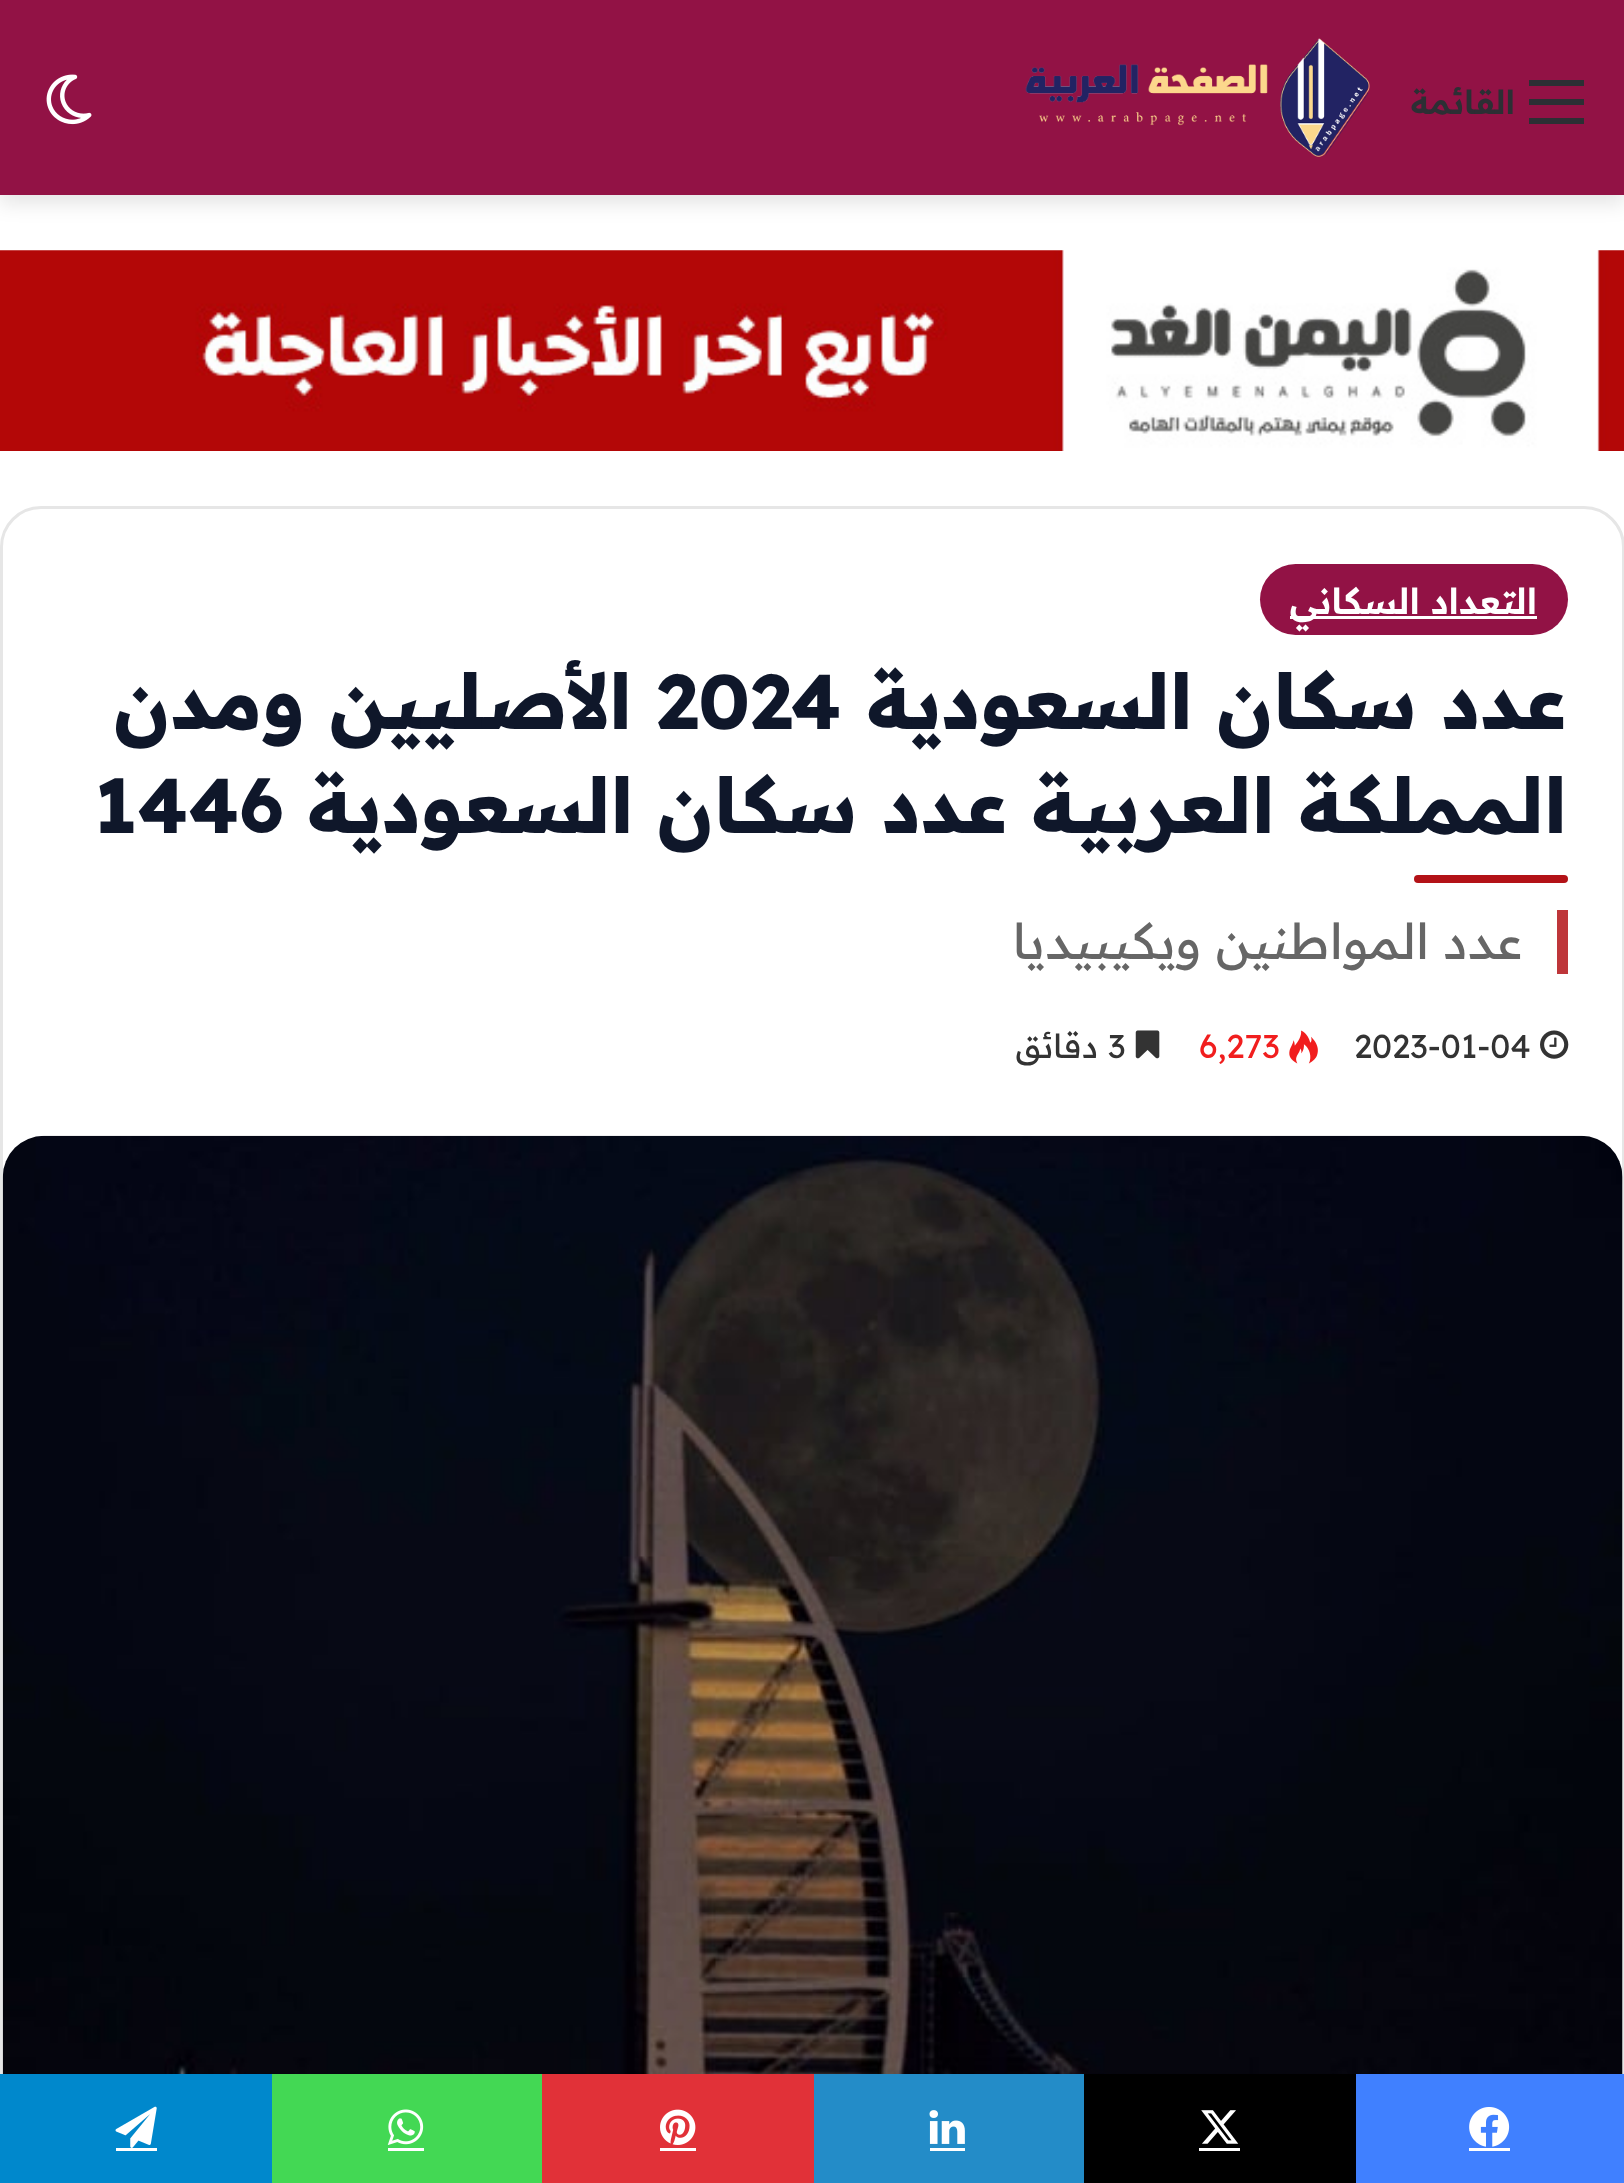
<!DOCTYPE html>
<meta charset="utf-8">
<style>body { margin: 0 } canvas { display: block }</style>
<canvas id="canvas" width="1624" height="2183"></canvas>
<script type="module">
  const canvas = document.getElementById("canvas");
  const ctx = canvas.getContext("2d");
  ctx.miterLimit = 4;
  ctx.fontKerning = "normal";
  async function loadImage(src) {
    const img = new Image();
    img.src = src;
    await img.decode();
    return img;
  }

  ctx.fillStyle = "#ffffff";
  ctx.fillRect(0, 0, 1624, 2183);
  ctx.fillStyle = "rgba(0, 0, 0, 0.1)";
  ctx.filter = "blur(9.5px)";
  ctx.beginPath();
  ctx.rect(0, 8, 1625, 196);
  ctx.fill();
  ctx.filter = "none";
  ctx.fillStyle = "#921245";
  ctx.fillRect(0, 0, 1624, 195);
  ctx.fillStyle = "#2c2f34";
  ctx.fillRect(1529, 99, 55, 6);
  ctx.fillRect(1529, 80, 55, 6);
  ctx.fillRect(1529, 118, 55, 6);
  ctx.direction = "rtl";
  ctx.font = "600 33px Readex Pro";
  ctx.fillText("القائمة", 1515, 114);
  ctx.drawImage(await loadImage("img1.png"), 1025, 38, 345, 119);
  ctx.drawImage(await loadImage("img2.png"), 46, 74, 46, 51);
  ctx.drawImage(await loadImage("img3.png"), 0, 250, 1624, 201);
  ctx.beginPath();
  ctx.roundRect(1.5, 507.5, 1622, 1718, 39.5);
  ctx.strokeStyle = "#e6e6e6";
  ctx.lineWidth = 3;
  ctx.stroke();
  ctx.fillStyle = "#921245";
  ctx.beginPath();
  ctx.roundRect(1260, 564, 308, 71, 35.5);
  ctx.fill();
  ctx.fillStyle = "#ffffff";
  ctx.fillRect(1290, 616, 247, 3);
  ctx.font = "600 35.75px Readex Pro";
  ctx.fillText("التعداد السكاني", 1537, 614);
  ctx.font = "bold 77px Readex Pro";
  ctx.fillStyle = "#0f172a";
  ctx.fillText("عدد سكان السعودية", 1567, 729);
  ctx.direction = "ltr";
  ctx.fillText("2024", 656, 729);
  ctx.direction = "rtl";
  ctx.fillText("الأصليين ومدن", 632, 729);
  ctx.fillText("المملكة العربية عدد سكان السعودية", 1567, 833);
  ctx.direction = "ltr";
  ctx.fillText("1446", 94, 833);
  ctx.fillStyle = "#b31217";
  ctx.beginPath();
  ctx.roundRect(1414, 875, 154, 8, 4);
  ctx.fill();
  ctx.fillStyle = "#be363a";
  ctx.fillRect(1557, 910, 11, 64);
  ctx.direction = "rtl";
  ctx.font = "49.5px Readex Pro";
  ctx.fillStyle = "#666666";
  ctx.fillText("عدد المواطنين ويكيبيديا", 1523, 959);
  ctx.drawImage(await loadImage("img4.png"), 1540, 1030, 29, 29);
  ctx.direction = "ltr";
  ctx.font = "33px Readex Pro";
  ctx.fillStyle = "#333333";
  ctx.fillText("2023-01-04", 1354, 1058);
  ctx.drawImage(await loadImage("img5.png"), 1289, 1030, 29, 34);
  ctx.fillStyle = "#f11e1e";
  ctx.fillText("6٬273", 1199, 1058);
  ctx.drawImage(await loadImage("img6.png"), 1135, 1030, 25, 29);
  ctx.fillStyle = "#333333";
  ctx.fillText("3", 1108, 1058);
  ctx.direction = "rtl";
  ctx.fillText("دقائق", 1098, 1058);
  ctx.drawImage(await loadImage("img7.png"), 2, 1135, 1621, 939);
  ctx.fillStyle = "#4080ff";
  ctx.fillRect(1356, 2074, 268, 109);
  ctx.drawImage(await loadImage("img8.png"), 1469, 2107, 41, 40);
  ctx.fillStyle = "#ffffff";
  ctx.fillRect(1469, 2148, 41, 3);
  ctx.fillStyle = "#000000";
  ctx.fillRect(1084, 2074, 272, 109);
  ctx.drawImage(await loadImage("img9.png"), 1201, 2110, 38, 34);
  ctx.fillStyle = "#ffffff";
  ctx.fillRect(1199, 2148, 41, 3);
  ctx.fillStyle = "#238cc8";
  ctx.fillRect(814, 2074, 270, 109);
  ctx.drawImage(await loadImage("img10.png"), 929, 2110, 36, 34);
  ctx.fillStyle = "#ffffff";
  ctx.fillRect(930, 2148, 35, 3);
  ctx.fillStyle = "#e13138";
  ctx.fillRect(542, 2074, 272, 109);
  ctx.drawImage(await loadImage("img11.png"), 660, 2109, 36, 36);
  ctx.fillStyle = "#ffffff";
  ctx.fillRect(660, 2148, 36, 3);
  ctx.fillStyle = "#43d854";
  ctx.fillRect(272, 2074, 270, 109);
  ctx.drawImage(await loadImage("img12.png"), 387, 2109, 37, 36);
  ctx.fillStyle = "#ffffff";
  ctx.fillRect(388, 2148, 36, 3);
  ctx.fillStyle = "#0088cc";
  ctx.fillRect(0, 2074, 272, 109);
  ctx.drawImage(await loadImage("img13.png"), 115, 2106, 42, 42);
  ctx.fillStyle = "#ffffff";
  ctx.fillRect(116, 2148, 41, 3);
</script>
